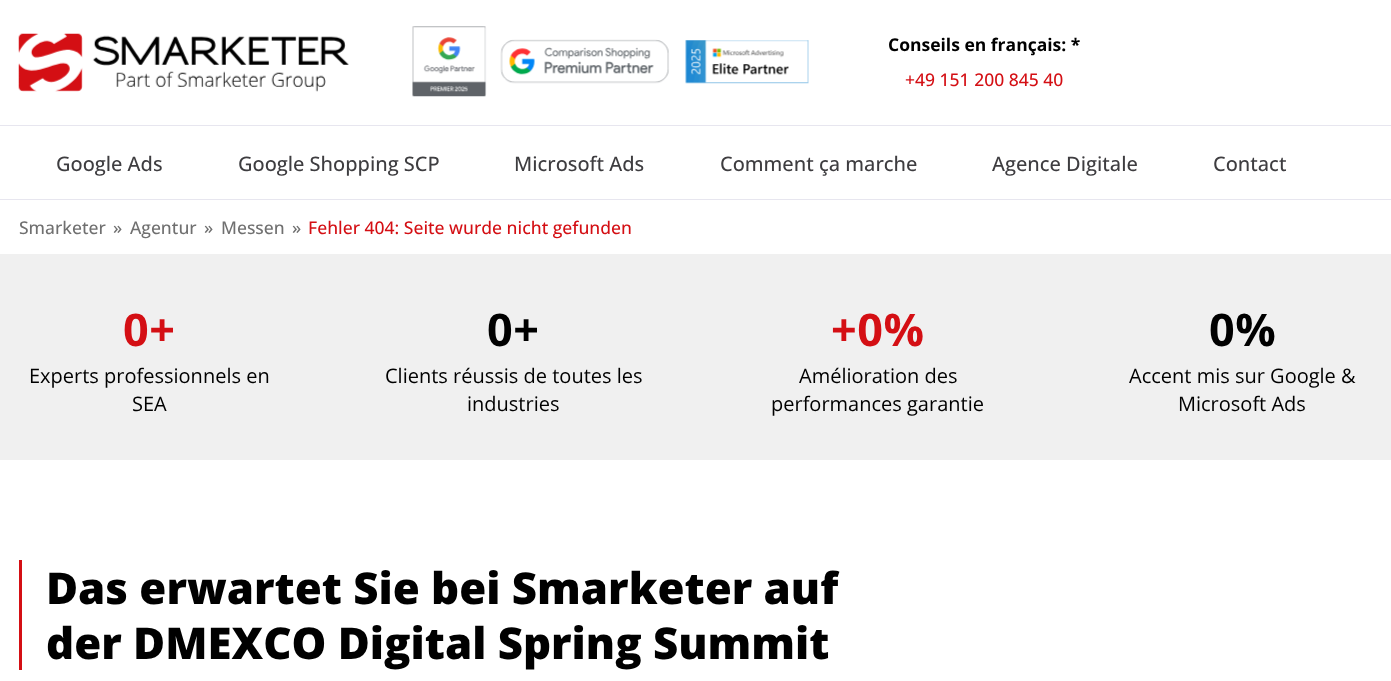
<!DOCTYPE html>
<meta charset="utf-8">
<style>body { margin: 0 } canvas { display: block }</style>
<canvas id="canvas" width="1391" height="681"></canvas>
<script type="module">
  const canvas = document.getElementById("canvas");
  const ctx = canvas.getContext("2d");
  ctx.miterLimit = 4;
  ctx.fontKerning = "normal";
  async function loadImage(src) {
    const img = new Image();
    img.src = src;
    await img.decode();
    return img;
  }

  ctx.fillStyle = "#ffffff";
  ctx.fillRect(0, 0, 1391, 681);
  ctx.fillStyle = "#e7e6ef";
  ctx.fillRect(0, 199, 1391, 1);
  ctx.drawImage(await loadImage("img1.png"), 18, 33, 331, 59);
  ctx.drawImage(await loadImage("img2.png"), 412, 26, 397, 71);
  ctx.font = "bold 17.5px Open Sans";
  ctx.fillStyle = "#000000";
  ctx.fillText("Conseils en français: *", 888, 51);
  ctx.font = "500 17.5px Open Sans";
  ctx.fillStyle = "#d40f14";
  ctx.fillText("+49 151 200 845 40", 905, 86);
  ctx.fillStyle = "#e7e6ef";
  ctx.fillRect(0, 125, 1391, 1);
  ctx.font = "500 20px Open Sans";
  ctx.fillStyle = "#3e3d40";
  ctx.fillText("Google Ads", 56, 171);
  ctx.fillText("Google Shopping SCP", 238, 171);
  ctx.fillText("Microsoft Ads", 514, 171);
  ctx.fillText("Comment ça marche", 720, 171);
  ctx.fillText("Agence Digitale", 992, 171);
  ctx.fillText("Contact", 1213, 171);
  ctx.font = "500 17.5px Open Sans";
  ctx.fillStyle = "#707070";
  ctx.fillText("Smarketer", 19, 234);
  ctx.fillText("»", 113, 234);
  ctx.fillText("Agentur", 130, 234);
  ctx.fillText("»", 204, 234);
  ctx.fillText("Messen", 221, 234);
  ctx.fillText("»", 292, 234);
  ctx.fillStyle = "#d40f14";
  ctx.fillText("Fehler 404: Seite wurde nicht gefunden", 308, 234);
  ctx.fillStyle = "#f0f0f0";
  ctx.fillRect(0, 254, 1391, 206);
  ctx.letterSpacing = "0.5px";
  ctx.font = "bold 45px Open Sans";
  ctx.fillStyle = "#d40f14";
  ctx.fillText("0+", 123, 346);
  ctx.letterSpacing = "0px";
  ctx.font = "20px Open Sans";
  ctx.fillStyle = "#000000";
  ctx.fillText("Experts professionnels en", 29, 383);
  ctx.fillText("SEA", 132, 411);
  ctx.letterSpacing = "0.5px";
  ctx.font = "bold 45px Open Sans";
  ctx.fillText("0+", 487, 346);
  ctx.letterSpacing = "0px";
  ctx.font = "20px Open Sans";
  ctx.fillText("Clients réussis de toutes les", 385, 383);
  ctx.fillText("industries", 467, 411);
  ctx.letterSpacing = "0.5px";
  ctx.font = "bold 45px Open Sans";
  ctx.fillStyle = "#d40f14";
  ctx.fillText("+0%", 831, 346);
  ctx.letterSpacing = "0px";
  ctx.font = "20px Open Sans";
  ctx.fillStyle = "#000000";
  ctx.fillText("Amélioration des", 799, 383);
  ctx.fillText("performances garantie", 771, 411);
  ctx.letterSpacing = "0.5px";
  ctx.font = "bold 45px Open Sans";
  ctx.fillText("0%", 1209, 346);
  ctx.letterSpacing = "0px";
  ctx.font = "20px Open Sans";
  ctx.fillText("Accent mis sur Google &", 1129, 383);
  ctx.fillText("Microsoft Ads", 1178, 411);
  ctx.fillStyle = "#d40f14";
  ctx.fillRect(19, 560, 3, 110);
  ctx.font = "800 43.75px Open Sans";
  ctx.fillStyle = "#000000";
  ctx.fillText("Das erwartet Sie bei Smarketer auf", 46, 604);
  ctx.fillText("der DMEXCO Digital Spring Summit", 46, 659);
</script>
